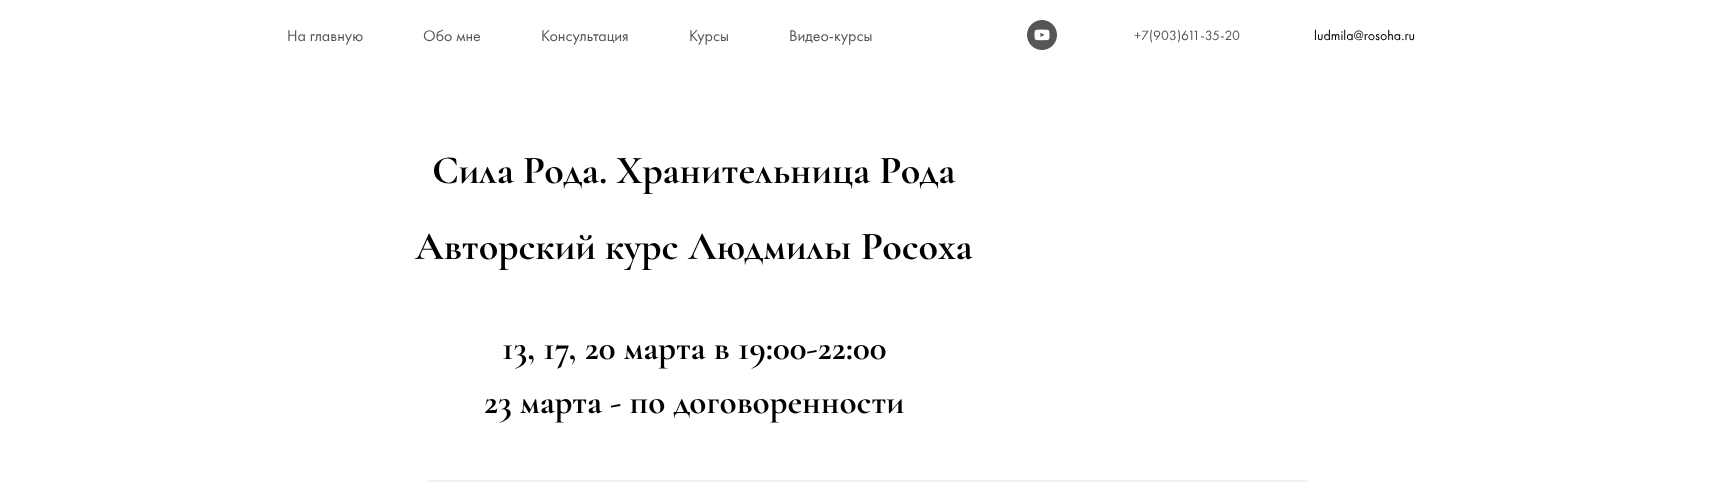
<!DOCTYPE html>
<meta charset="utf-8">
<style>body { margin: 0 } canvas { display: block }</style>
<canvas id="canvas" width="1734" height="482"></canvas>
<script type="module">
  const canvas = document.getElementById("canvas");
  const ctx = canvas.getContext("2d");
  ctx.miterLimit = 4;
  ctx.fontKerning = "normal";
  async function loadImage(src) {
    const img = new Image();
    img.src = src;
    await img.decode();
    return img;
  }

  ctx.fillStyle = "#ffffff";
  ctx.fillRect(0, 0, 1734, 482);
  ctx.font = "16px Futura PT";
  ctx.fillStyle = "#565656";
  ctx.fillText("На главную", 287, 41);
  ctx.fillText("Обо мне", 423, 41);
  ctx.fillText("Консультация", 541, 41);
  ctx.fillText("Курсы", 689, 41);
  ctx.fillText("Видео-курсы", 789, 41);
  ctx.drawImage(await loadImage("img1.png"), 1027, 20, 30, 30);
  ctx.font = "14px Futura PT";
  ctx.fillText("+7(903)611-35-20", 1134, 40);
  ctx.fillStyle = "#000000";
  ctx.fillText("ludmila@rosoha.ru", 1314, 40);
  ctx.font = "bold 40px Cormorant Garamond";
  ctx.fillText("Сила Рода. Хранительница Рода", 432, 183);
  ctx.fillText("Авторский курс Людмилы Росоха", 415, 259);
  ctx.font = "bold 35px Cormorant Garamond";
  ctx.fillText("13, 17, 20 марта в 19:00-22:00", 502, 359);
  ctx.fillText("23 марта - по договоренности", 484, 413);
  ctx.fillStyle = "#f2f2f2";
  ctx.fillRect(427, 480, 880, 2);
</script>
